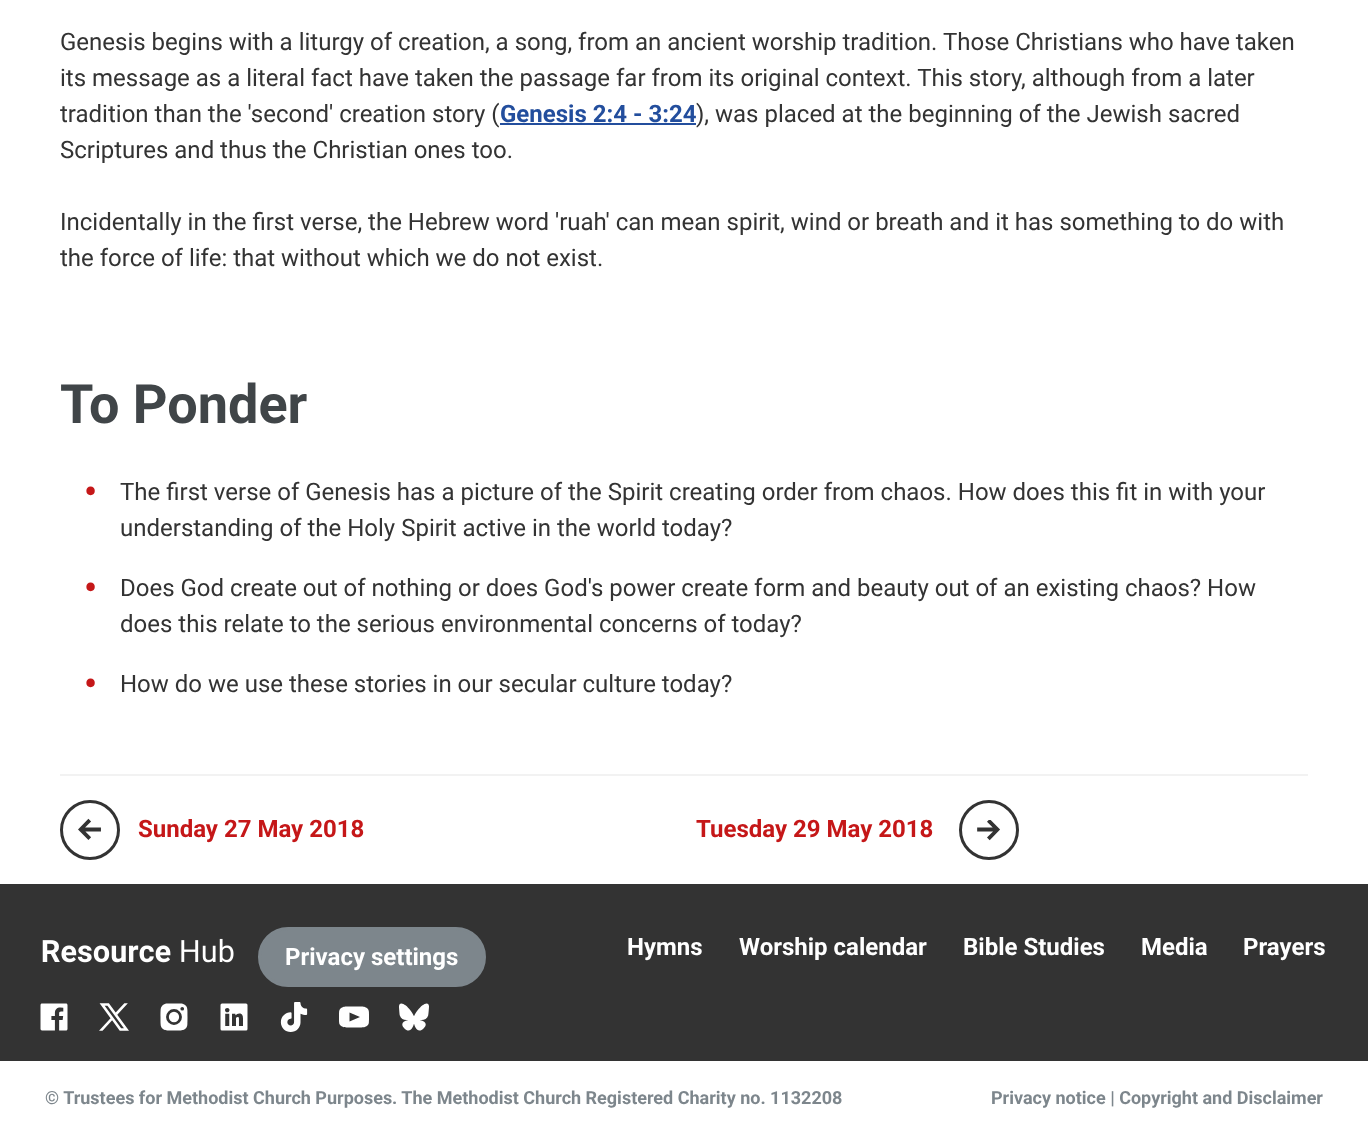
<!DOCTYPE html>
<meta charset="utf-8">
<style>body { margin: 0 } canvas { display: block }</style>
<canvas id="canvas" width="1368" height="1135"></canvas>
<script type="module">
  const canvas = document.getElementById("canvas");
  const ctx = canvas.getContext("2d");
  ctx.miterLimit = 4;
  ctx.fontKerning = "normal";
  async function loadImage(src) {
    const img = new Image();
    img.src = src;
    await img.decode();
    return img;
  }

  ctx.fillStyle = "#ffffff";
  ctx.fillRect(0, 0, 1368, 1135);
  ctx.font = "24px Roboto";
  ctx.fillStyle = "#333333";
  ctx.fillText("Genesis begins with a liturgy of creation, a song, from an ancient worship tradition. Those Christians who have taken", 60, 50);
  ctx.fillText("its message as a literal fact have taken the passage far from its original context. This story, although from a later", 60, 86);
  ctx.fillText("tradition than the 'second' creation story (", 60, 122);
  ctx.font = "bold 24px Roboto";
  ctx.fillStyle = "#234e9d";
  ctx.fillText("Genesis 2:4 - 3:24", 500, 122);
  ctx.fillRect(500, 123, 196, 2);
  ctx.font = "24px Roboto";
  ctx.fillStyle = "#333333";
  ctx.fillText("), was placed at the beginning of the Jewish sacred", 696, 122);
  ctx.fillText("Scriptures and thus the Christian ones too.", 60, 158);
  ctx.fillText("Incidentally in the first verse, the Hebrew word 'ruah' can mean spirit, wind or breath and it has something to do with", 60, 230);
  ctx.fillText("the force of life: that without which we do not exist.", 60, 266);
  ctx.font = "bold 54px Roboto";
  ctx.fillStyle = "#404548";
  ctx.fillText("To Ponder", 60, 423);
  ctx.font = "bold 36px Roboto";
  ctx.fillStyle = "#c51718";
  ctx.fillText("•", 84, 504);
  ctx.font = "24px Roboto";
  ctx.fillStyle = "#333333";
  ctx.fillText("The first verse of Genesis has a picture of the Spirit creating order from chaos. How does this fit in with your", 120, 500);
  ctx.fillText("understanding of the Holy Spirit active in the world today?", 120, 536);
  ctx.font = "bold 36px Roboto";
  ctx.fillStyle = "#c51718";
  ctx.fillText("•", 84, 600);
  ctx.font = "24px Roboto";
  ctx.fillStyle = "#333333";
  ctx.fillText("Does God create out of nothing or does God's power create form and beauty out of an existing chaos? How", 120, 596);
  ctx.fillText("does this relate to the serious environmental concerns of today?", 120, 632);
  ctx.font = "bold 36px Roboto";
  ctx.fillStyle = "#c51718";
  ctx.fillText("•", 84, 696);
  ctx.font = "24px Roboto";
  ctx.fillStyle = "#333333";
  ctx.fillText("How do we use these stories in our secular culture today?", 120, 692);
  ctx.fillStyle = "#f2f2f2";
  ctx.fillRect(60, 774, 1248, 2);
  ctx.beginPath();
  ctx.arc(90, 830, 28.5, 0, Math.PI * 2);
  ctx.strokeStyle = "#333333";
  ctx.lineWidth = 3;
  ctx.stroke();
  ctx.drawImage(await loadImage("img1.png"), 78, 818, 23, 22);
  ctx.font = "bold 24px Roboto";
  ctx.fillStyle = "#c51718";
  ctx.fillText("Sunday 27 May 2018", 138, 837);
  ctx.fillText("Tuesday 29 May 2018", 696, 837);
  ctx.beginPath();
  ctx.arc(989, 830, 28.5, 0, Math.PI * 2);
  ctx.stroke();
  ctx.drawImage(await loadImage("img2.png"), 977, 820, 23, 21);
  ctx.fillStyle = "#333333";
  ctx.fillRect(0, 884, 1368, 177);
  ctx.drawImage(await loadImage("img3.png"), 42, 938, 192, 25);
  ctx.fillStyle = "#7d868c";
  ctx.beginPath();
  ctx.roundRect(259.5, 928.5, 225, 57, 28.5);
  ctx.fill();
  ctx.strokeStyle = "#7d868c";
  ctx.stroke();
  ctx.fillStyle = "#ffffff";
  ctx.fillText("Privacy settings", 285, 965);
  ctx.fillText("Hymns", 627, 955);
  ctx.fillText("Worship calendar", 739, 955);
  ctx.fillText("Bible Studies", 963, 955);
  ctx.fillText("Media", 1141, 955);
  ctx.fillText("Prayers", 1243, 955);
  ctx.drawImage(await loadImage("img4.png"), 40, 1003, 28, 28);
  ctx.drawImage(await loadImage("img5.png"), 99, 1003, 30, 28);
  ctx.drawImage(await loadImage("img6.png"), 160, 1003, 28, 28);
  ctx.drawImage(await loadImage("img7.png"), 220, 1003, 28, 28);
  ctx.drawImage(await loadImage("img8.png"), 280, 1002, 28, 30);
  ctx.drawImage(await loadImage("img9.png"), 339, 1006, 30, 22);
  ctx.drawImage(await loadImage("img10.png"), 399, 1003, 30, 28);
  ctx.font = "bold 18px Roboto";
  ctx.fillStyle = "#7d868c";
  ctx.fillText("© Trustees for Methodist Church Purposes. The Methodist Church Registered Charity no. 1132208", 45, 1104);
  ctx.fillText("Privacy notice | Copyright and Disclaimer", 991, 1104);
</script>
